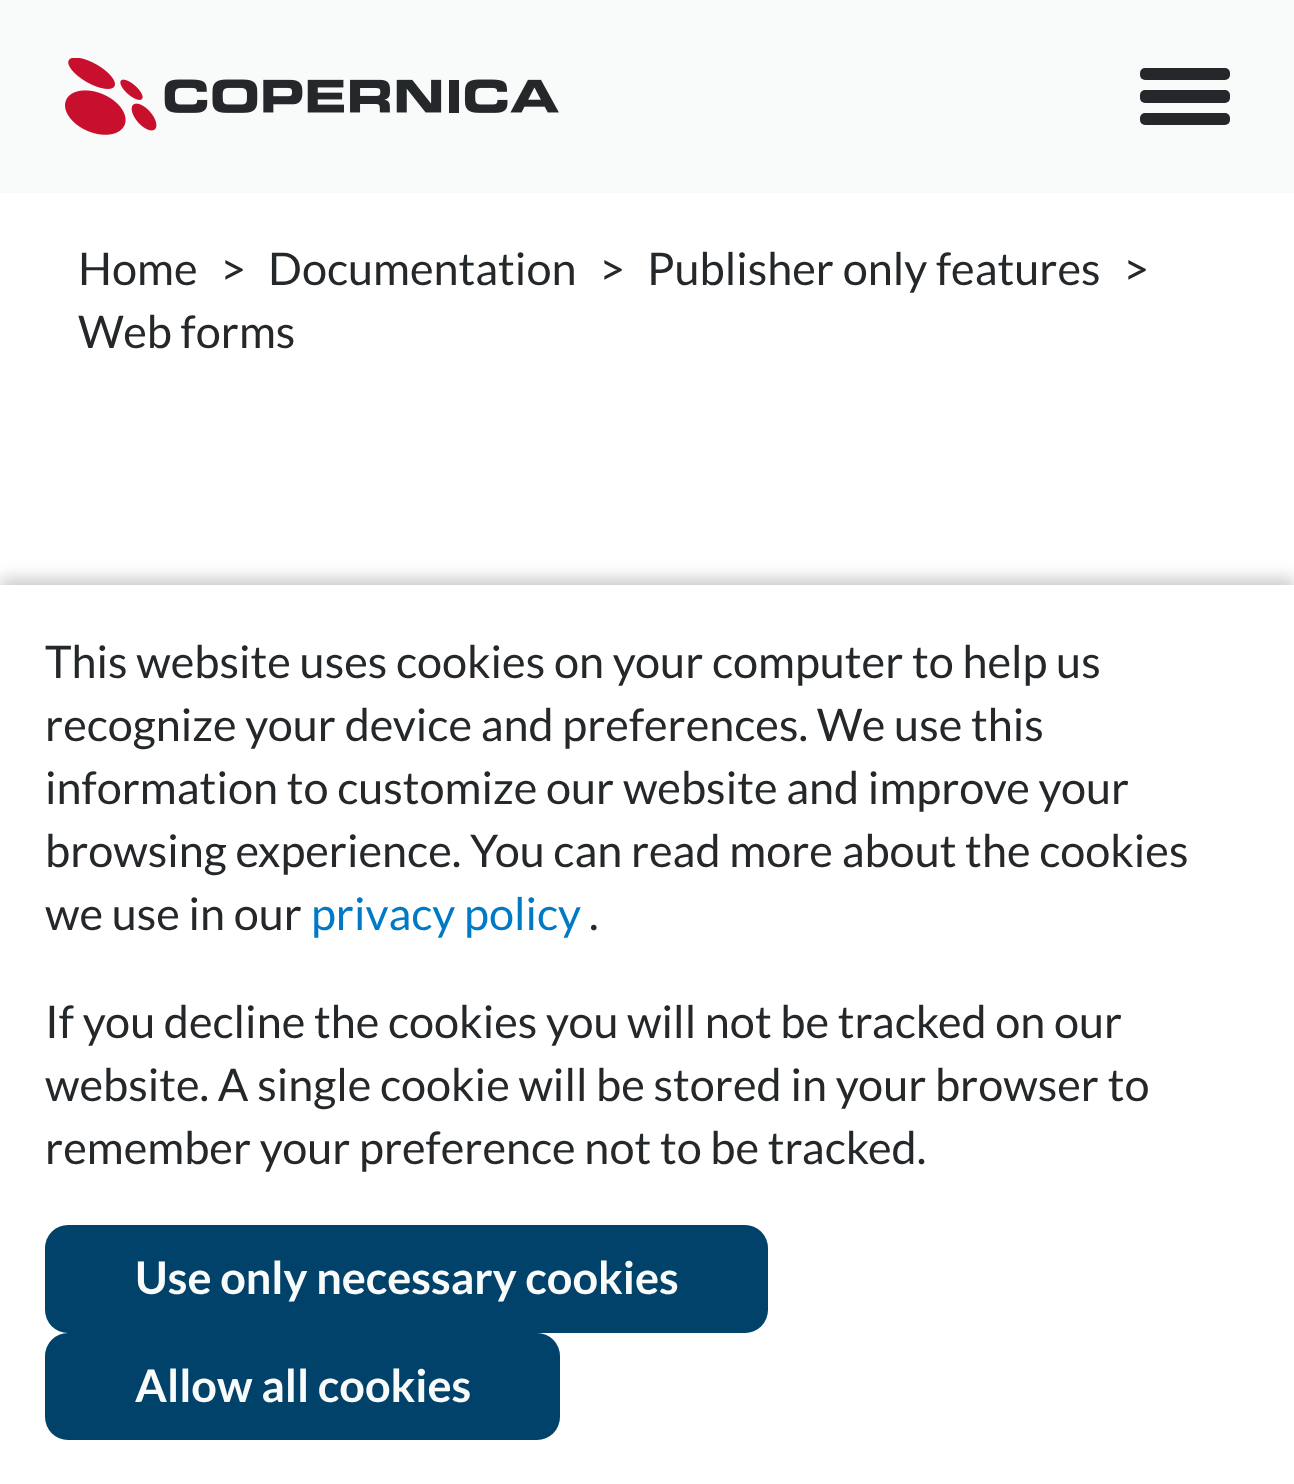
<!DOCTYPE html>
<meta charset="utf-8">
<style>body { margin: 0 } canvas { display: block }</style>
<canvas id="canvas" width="1294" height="1484"></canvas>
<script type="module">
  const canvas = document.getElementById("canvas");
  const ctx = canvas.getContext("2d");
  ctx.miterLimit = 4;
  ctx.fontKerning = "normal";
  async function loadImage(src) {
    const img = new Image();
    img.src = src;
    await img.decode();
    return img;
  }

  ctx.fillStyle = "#ffffff";
  ctx.fillRect(0, 0, 1294, 1484);
  ctx.fillStyle = "#f9fafa";
  ctx.fillRect(0, 0, 1294, 193);
  ctx.drawImage(await loadImage("img1.png"), 65, 58, 494, 77);
  ctx.fillStyle = "#25282a";
  ctx.beginPath();
  ctx.roundRect(1140, 90, 90, 13, 5);
  ctx.fill();
  ctx.beginPath();
  ctx.roundRect(1140, 68, 90, 12, 5);
  ctx.fill();
  ctx.beginPath();
  ctx.roundRect(1140, 113, 90, 12, 5);
  ctx.fill();
  ctx.font = "45px Lato";
  ctx.fillText("Home", 78, 285);
  ctx.fillText(">", 220, 285);
  ctx.fillText("Documentation", 268, 285);
  ctx.fillText(">", 599, 285);
  ctx.fillText("Publisher only features", 647, 285);
  ctx.fillText(">", 1123, 285);
  ctx.fillText("Web forms", 78, 348);
  ctx.fillStyle = "rgba(0, 0, 0, 0.2)";
  ctx.filter = "blur(8px)";
  ctx.beginPath();
  ctx.rect(0, 578, 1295, 900);
  ctx.fill();
  ctx.filter = "none";
  ctx.fillStyle = "#ffffff";
  ctx.fillRect(0, 585, 1294, 899);
  ctx.fillStyle = "#25282a";
  ctx.fillText("This website uses cookies on your computer to help us", 45, 678);
  ctx.fillText("recognize your device and preferences. We use this", 45, 741);
  ctx.fillText("information to customize our website and improve your", 45, 804);
  ctx.fillText("browsing experience. You can read more about the cookies", 45, 867);
  ctx.fillText("we use in our", 45, 930);
  ctx.fillStyle = "#007ac4";
  ctx.fillText("privacy policy", 311, 930);
  ctx.fillStyle = "#25282a";
  ctx.fillText(".", 589, 930);
  ctx.fillText("If you decline the cookies you will not be tracked on our", 45, 1038);
  ctx.fillText("website. A single cookie will be stored in your browser to", 45, 1101);
  ctx.fillText("remember your preference not to be tracked.", 45, 1164);
  ctx.fillStyle = "#00426a";
  ctx.beginPath();
  ctx.roundRect(45, 1225, 723, 108, 23);
  ctx.fill();
  ctx.font = "bold 45px Lato";
  ctx.fillStyle = "#f9fafa";
  ctx.fillText("Use only necessary cookies", 135, 1294);
  ctx.fillStyle = "#00426a";
  ctx.beginPath();
  ctx.roundRect(45, 1333, 515, 107, 23);
  ctx.fill();
  ctx.fillStyle = "#f9fafa";
  ctx.fillText("Allow all cookies", 135, 1402);
</script>
